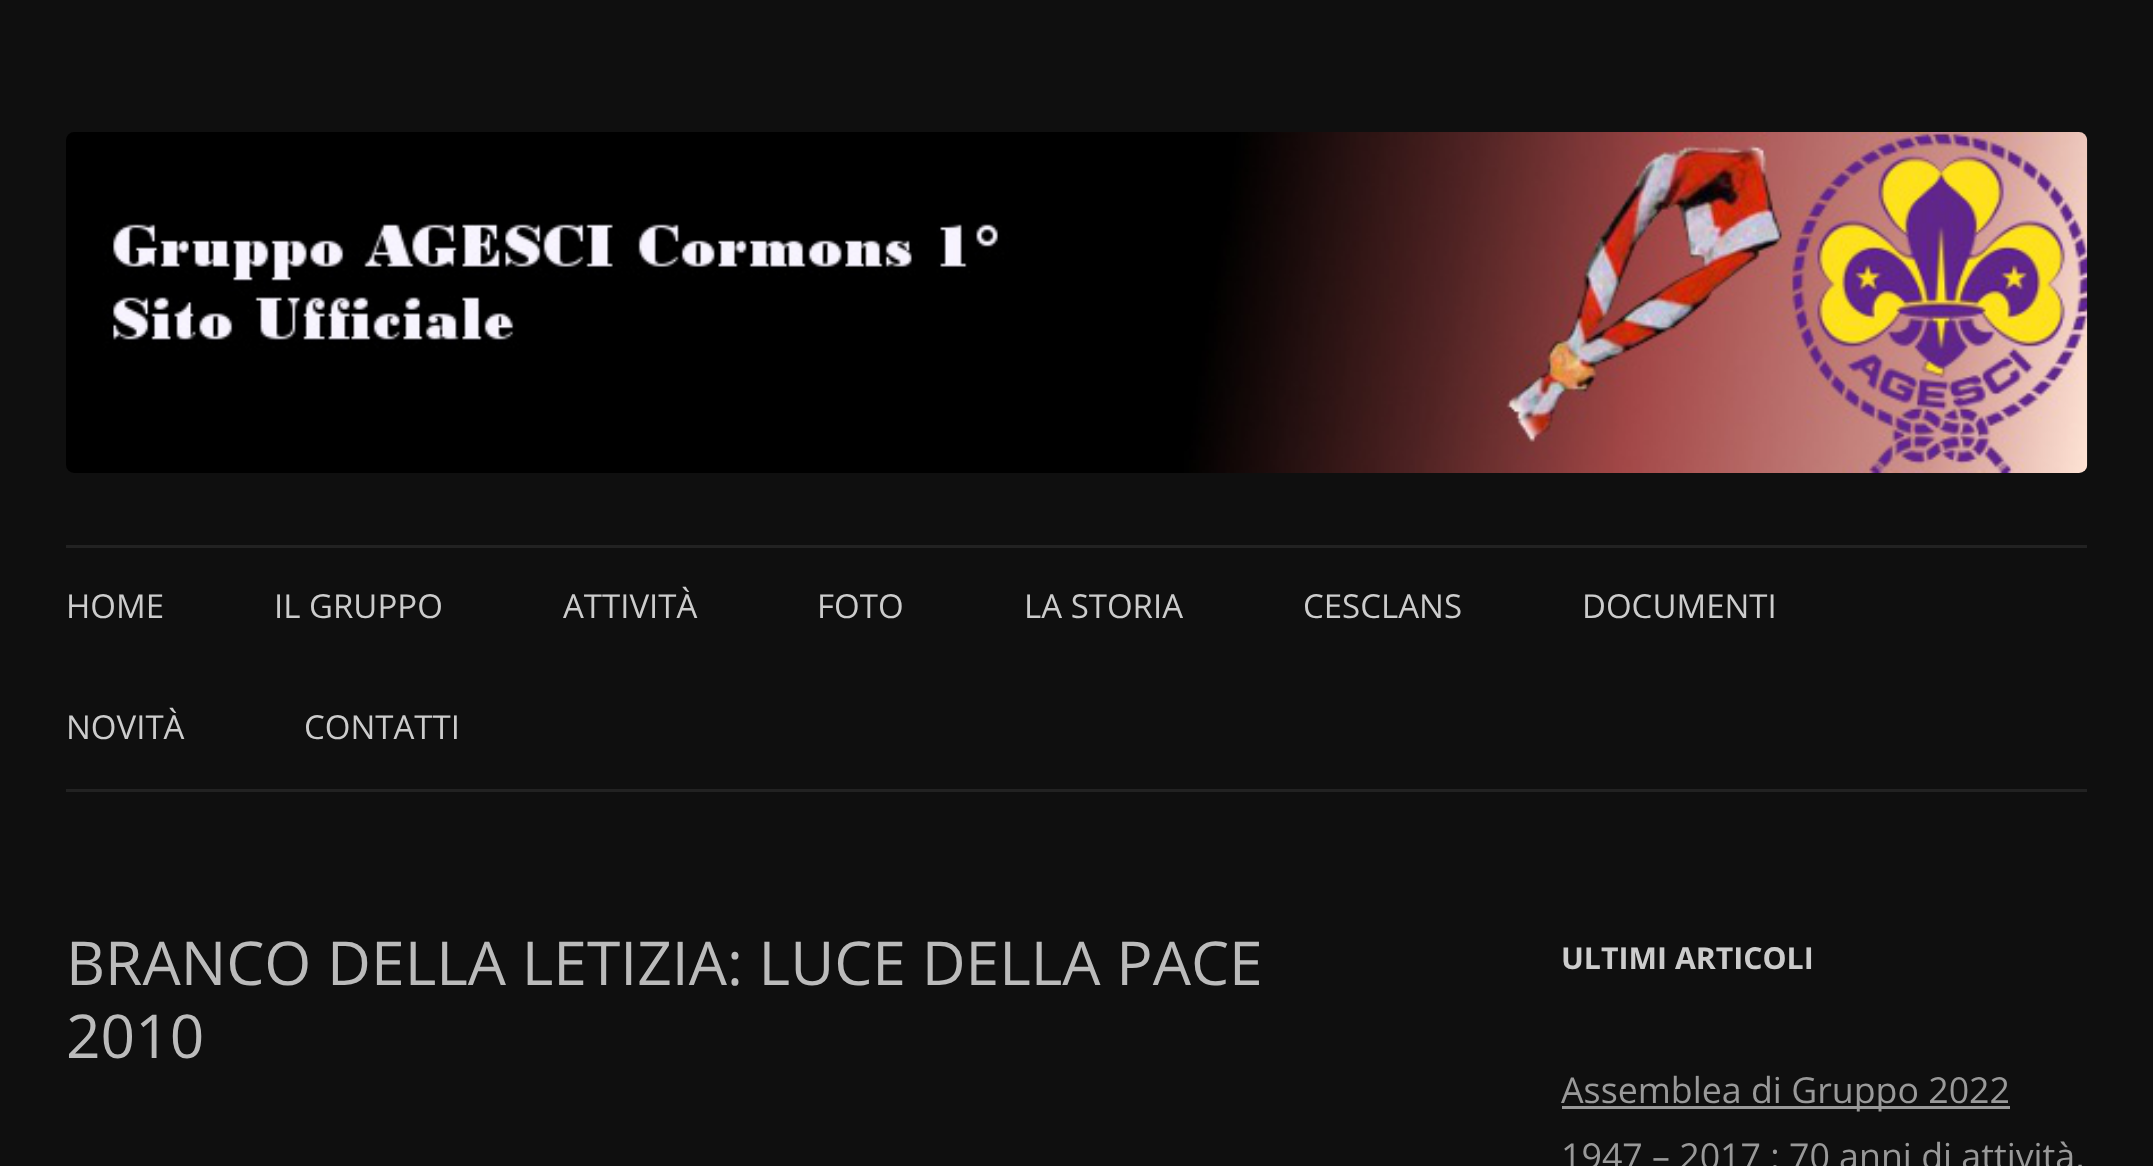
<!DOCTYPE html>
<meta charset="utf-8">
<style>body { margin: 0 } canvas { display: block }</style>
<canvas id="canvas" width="2153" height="1166"></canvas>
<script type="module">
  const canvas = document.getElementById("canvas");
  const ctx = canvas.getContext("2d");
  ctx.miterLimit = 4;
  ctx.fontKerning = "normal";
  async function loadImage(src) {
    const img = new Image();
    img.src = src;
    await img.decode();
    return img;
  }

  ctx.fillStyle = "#0f0f0f";
  ctx.fillRect(0, 0, 2153, 1166);
  ctx.drawImage(await loadImage("img1.png"), 66, 132, 2022, 341);
  ctx.fillStyle = "#222222";
  ctx.fillRect(66, 545, 2021, 3);
  ctx.fillRect(66, 789, 2021, 3);
  ctx.font = "33px Open Sans";
  ctx.fillStyle = "#cccccc";
  ctx.fillText("HOME", 66, 618);
  ctx.fillText("IL GRUPPO", 274, 618);
  ctx.fillText("ATTIVITÀ", 563, 618);
  ctx.fillText("FOTO", 817, 618);
  ctx.fillText("LA STORIA", 1024, 618);
  ctx.fillText("CESCLANS", 1303, 618);
  ctx.fillText("DOCUMENTI", 1582, 618);
  ctx.fillText("NOVITÀ", 66, 739);
  ctx.fillText("CONTATTI", 304, 739);
  ctx.font = "60.5px Open Sans";
  ctx.fillStyle = "#bbbbbb";
  ctx.fillText("BRANCO DELLA LETIZIA: LUCE DELLA PACE", 66, 985);
  ctx.fillText("2010", 66, 1058);
  ctx.font = "bold 30.25px Open Sans";
  ctx.fillStyle = "#cccccc";
  ctx.fillText("ULTIMI ARTICOLI", 1561, 969);
  ctx.fillStyle = "#999999";
  ctx.fillRect(1562, 1106, 448, 3);
  ctx.font = "35.75px Open Sans";
  ctx.fillText("Assemblea di Gruppo 2022", 1561, 1103);
  ctx.fillText("1947 – 2017 : 70 anni di attività,", 1561, 1169);
</script>
